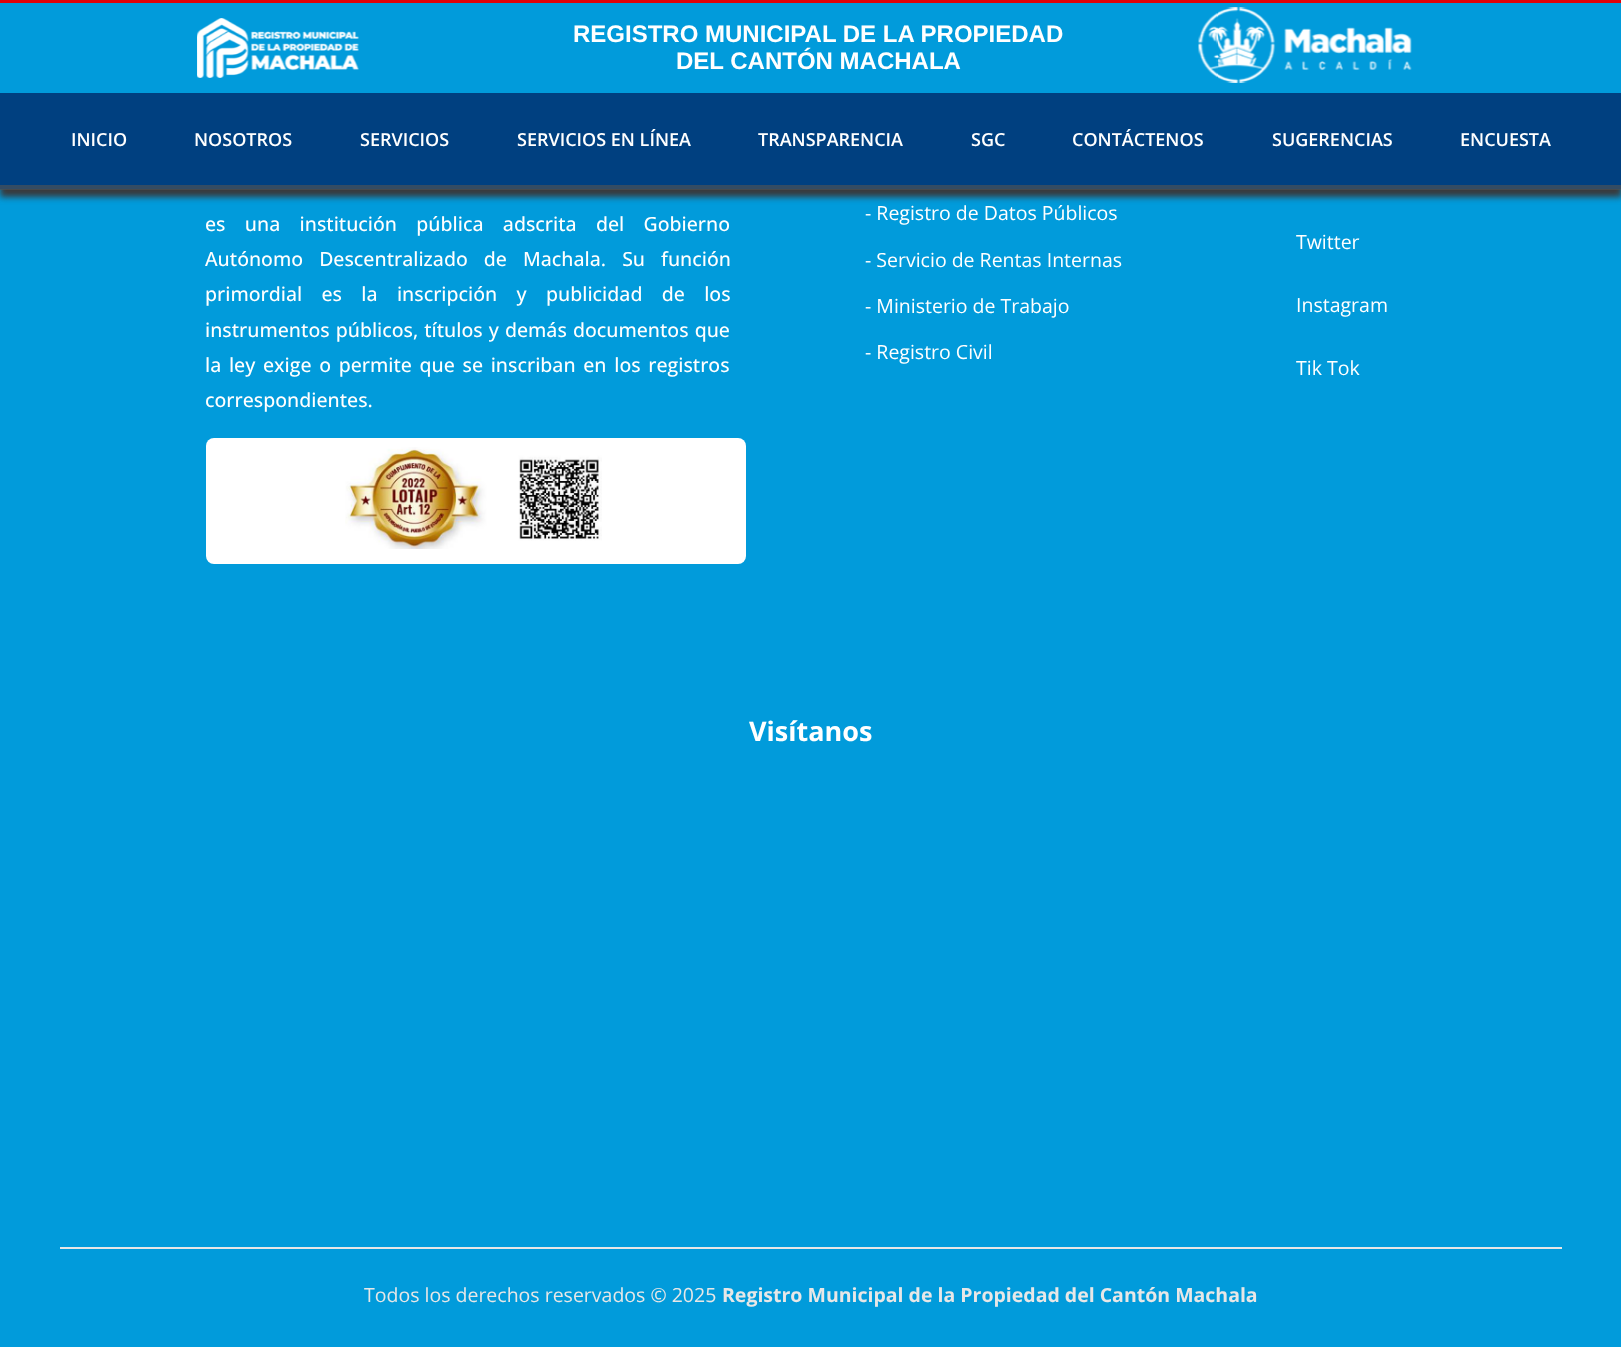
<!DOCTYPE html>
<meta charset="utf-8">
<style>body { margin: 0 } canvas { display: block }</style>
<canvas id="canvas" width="1621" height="1347"></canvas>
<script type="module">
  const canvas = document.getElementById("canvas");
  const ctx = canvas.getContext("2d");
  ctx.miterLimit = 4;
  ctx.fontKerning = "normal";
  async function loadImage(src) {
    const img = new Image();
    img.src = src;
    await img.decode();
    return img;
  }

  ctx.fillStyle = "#019bdb";
  ctx.fillRect(0, 0, 1621, 1347);
  ctx.fillStyle = "#39393b";
  ctx.filter = "blur(3px)";
  ctx.beginPath();
  ctx.rect(0, 8, 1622, 189);
  ctx.fill();
  ctx.filter = "none";
  ctx.fillStyle = "#004080";
  ctx.fillRect(0, 93, 1621, 96);
  ctx.fillStyle = "#df0209";
  ctx.fillRect(0, 0, 1621, 3);
  ctx.fillStyle = "rgba(77, 82, 85, 0.68)";
  ctx.fillRect(0, 185, 1621, 5);
  ctx.fillStyle = "#019bdb";
  ctx.fillRect(0, 3, 1621, 90);
  ctx.drawImage(await loadImage("img1.png"), 197, 18, 162, 60);
  ctx.font = "bold 24px Liberation Sans";
  ctx.fillStyle = "#ffffff";
  ctx.fillText("REGISTRO MUNICIPAL DE LA PROPIEDAD", 573, 42);
  ctx.fillText("DEL CANTÓN MACHALA", 676, 69);
  ctx.drawImage(await loadImage("img2.png"), 1198, 7, 214, 76);
  ctx.font = "600 18px Open Sans";
  ctx.fillText("INICIO", 71, 146);
  ctx.fillText("NOSOTROS", 194, 146);
  ctx.fillText("SERVICIOS", 360, 146);
  ctx.fillText("SERVICIOS EN LÍNEA", 517, 146);
  ctx.fillText("TRANSPARENCIA", 758, 146);
  ctx.fillText("SGC", 971, 146);
  ctx.fillText("CONTÁCTENOS", 1072, 146);
  ctx.fillText("SUGERENCIAS", 1272, 146);
  ctx.fillText("ENCUESTA", 1460, 146);
  ctx.wordSpacing = "14.25px";
  ctx.font = "500 19.5px Open Sans";
  ctx.fillText("es una institución pública adscrita del Gobierno", 205, 231);
  ctx.wordSpacing = "11px";
  ctx.fillText("Autónomo Descentralizado de Machala. Su función", 205, 266);
  ctx.wordSpacing = "14.25px";
  ctx.fillText("primordial es la inscripción y publicidad de los", 205, 301);
  ctx.wordSpacing = "1px";
  ctx.fillText("instrumentos públicos, títulos y demás documentos que", 205, 337);
  ctx.wordSpacing = "2.6px";
  ctx.fillText("la ley exige o permite que se inscriban en los registros", 205, 372);
  ctx.wordSpacing = "0px";
  ctx.fillText("correspondientes.", 205, 407);
  ctx.beginPath();
  ctx.roundRect(206, 438, 540, 126, 8);
  ctx.fill();
  ctx.drawImage(await loadImage("img3.png"), 345, 447, 257, 102);
  ctx.font = "19.5px Open Sans";
  ctx.fillText("- Registro de Datos Públicos", 865, 220);
  ctx.fillText("- Servicio de Rentas Internas", 865, 267);
  ctx.fillText("- Ministerio de Trabajo", 865, 313);
  ctx.fillText("- Registro Civil", 865, 359);
  ctx.fillText("Twitter", 1296, 249);
  ctx.fillText("Instagram", 1296, 312);
  ctx.fillText("Tik Tok", 1296, 375);
  ctx.font = "bold 27px Open Sans";
  ctx.fillText("Visítanos", 749, 741);
  ctx.fillStyle = "#e7e7e7";
  ctx.fillRect(60, 1247, 1502, 2);
  ctx.font = "19.5px Open Sans";
  ctx.fillText("Todos los derechos reservados © 2025", 364, 1302);
  ctx.font = "bold 19.5px Open Sans";
  ctx.fillText("Registro Municipal de la Propiedad del Cantón Machala", 722, 1302);
</script>
